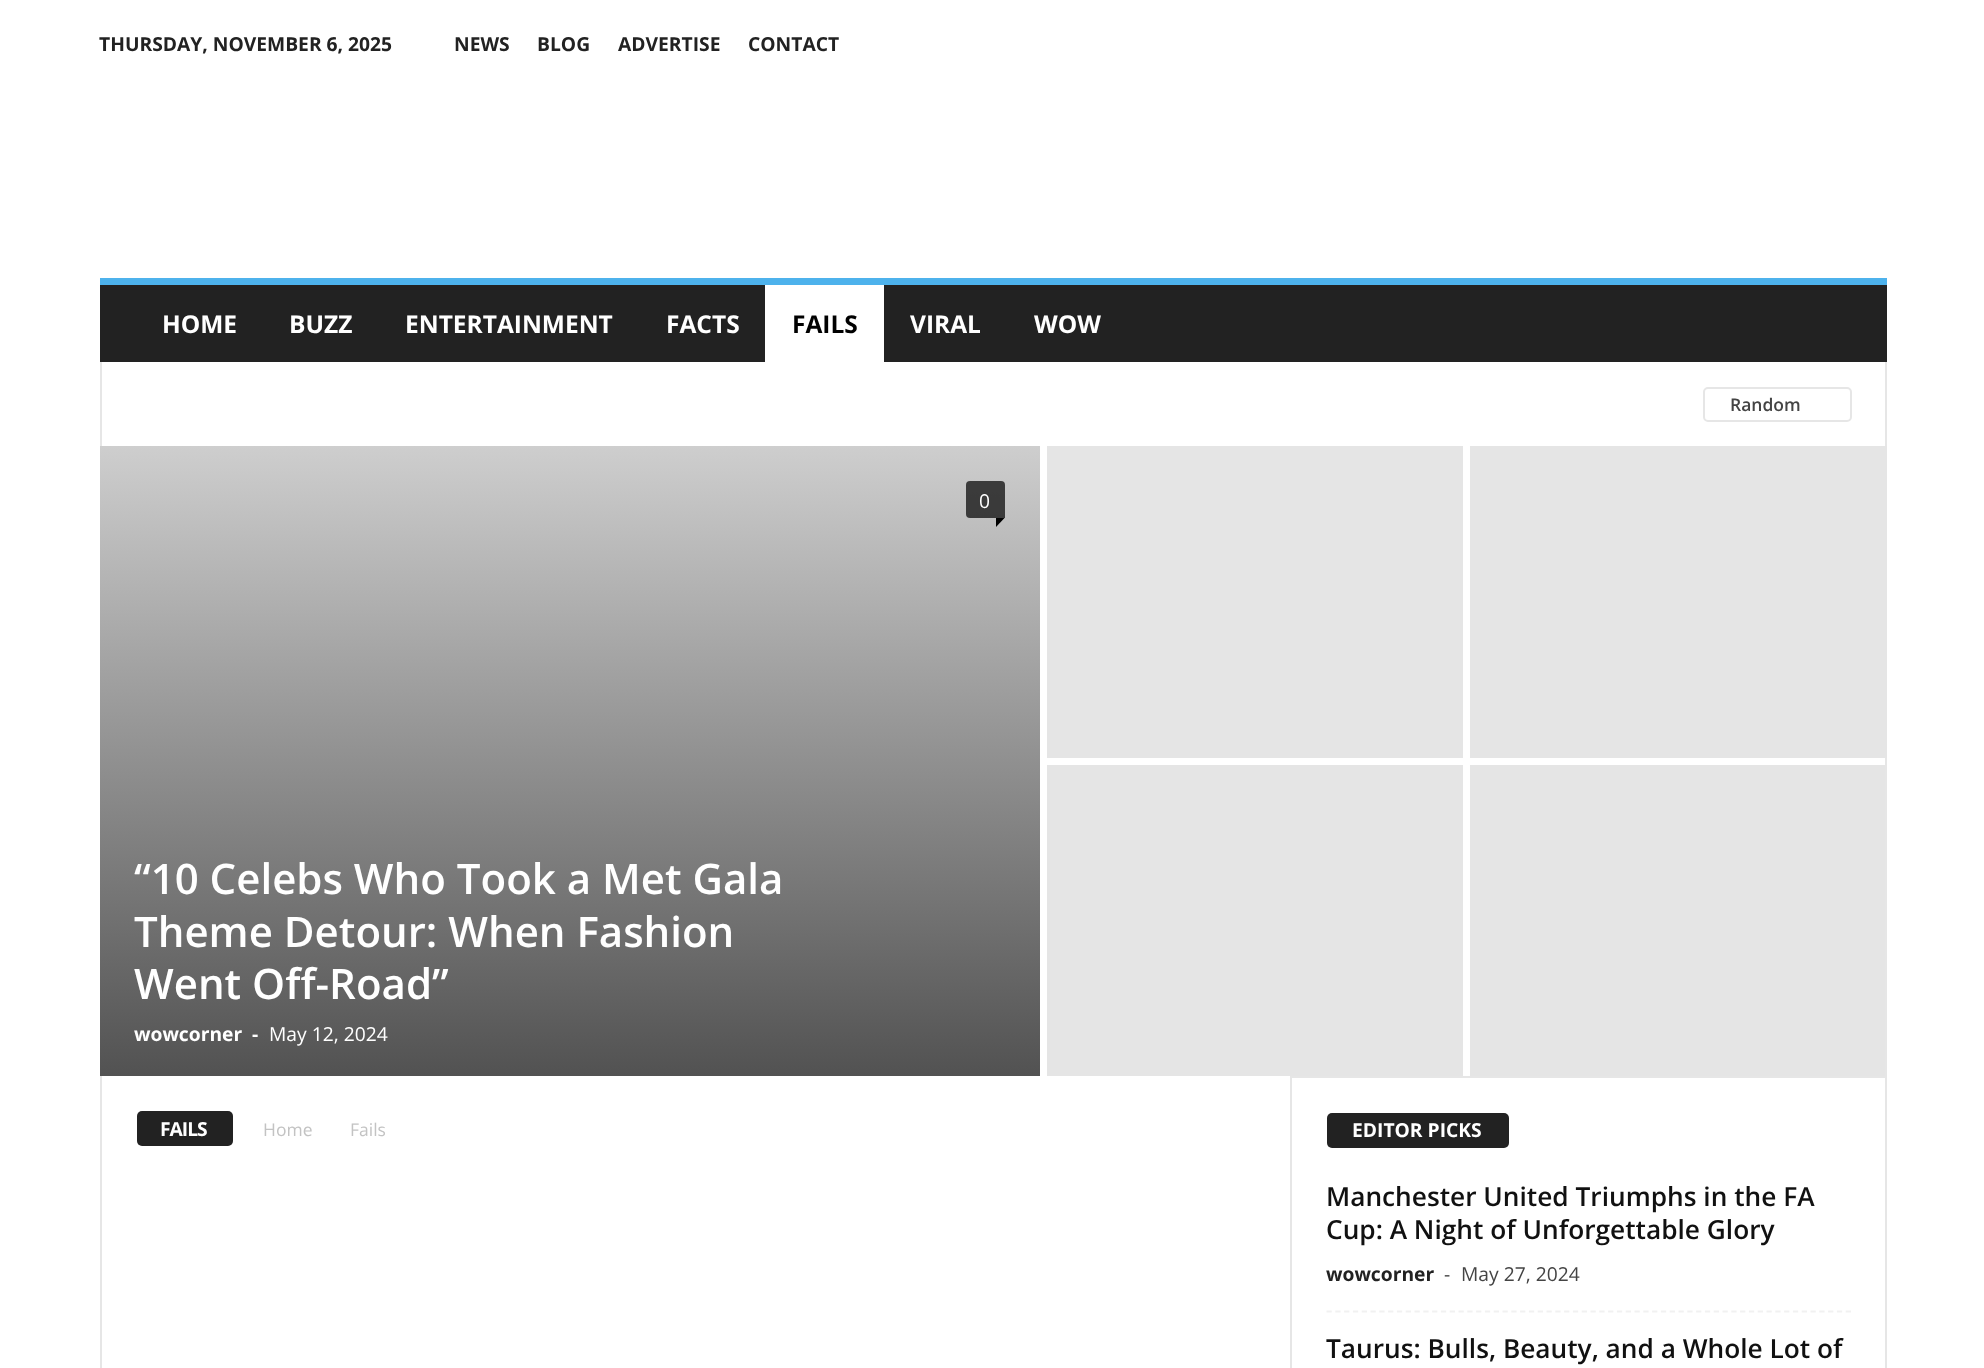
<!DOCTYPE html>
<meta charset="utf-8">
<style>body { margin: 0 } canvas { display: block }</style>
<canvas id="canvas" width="1984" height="1368"></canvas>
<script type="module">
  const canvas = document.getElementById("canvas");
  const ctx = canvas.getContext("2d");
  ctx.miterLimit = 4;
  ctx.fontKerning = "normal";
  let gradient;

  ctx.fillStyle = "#ffffff";
  ctx.fillRect(0, 0, 1984, 1368);
  ctx.font = "bold 19.25px Open Sans";
  ctx.fillStyle = "#222222";
  ctx.fillText("THURSDAY, NOVEMBER 6, 2025", 99, 51);
  ctx.fillText("NEWS", 454, 51);
  ctx.fillText("BLOG", 537, 51);
  ctx.fillText("ADVERTISE", 618, 51);
  ctx.fillText("CONTACT", 748, 51);
  ctx.fillRect(100, 285, 1787, 77);
  ctx.fillStyle = "#4db2ec";
  ctx.fillRect(100, 278, 1787, 7);
  ctx.font = "bold 24.5px Open Sans";
  ctx.fillStyle = "#ffffff";
  ctx.fillText("HOME", 162, 333);
  ctx.fillText("BUZZ", 289, 333);
  ctx.fillText("ENTERTAINMENT", 405, 333);
  ctx.fillText("FACTS", 666, 333);
  ctx.fillRect(765, 285, 119, 77);
  ctx.fillStyle = "#000000";
  ctx.fillText("FAILS", 792, 333);
  ctx.fillStyle = "#ffffff";
  ctx.fillText("VIRAL", 910, 333);
  ctx.fillText("WOW", 1034, 333);
  ctx.fillStyle = "#e6e6e6";
  ctx.fillRect(100, 362, 2, 84);
  ctx.beginPath();
  ctx.roundRect(1704, 388, 147, 33, 4);
  ctx.strokeStyle = "#e6e6e6";
  ctx.lineWidth = 2;
  ctx.stroke();
  ctx.font = "600 17.5px Open Sans";
  ctx.fillStyle = "#444444";
  ctx.fillText("Random", 1730, 411);
  ctx.fillStyle = "#e6e6e6";
  ctx.fillRect(1885, 362, 2, 84);
  ctx.fillRect(100, 1076, 2, 292);
  gradient = ctx.createLinearGradient(570, 446, 570, 1076);
  gradient.addColorStop(0, "#cecece");
  gradient.addColorStop(1, "#525252");
  ctx.fillStyle = gradient;
  ctx.fillRect(100, 446, 940, 630);
  ctx.fillStyle = "rgba(0, 0, 0, 0.7)";
  ctx.beginPath();
  ctx.roundRect(966, 481, 39, 37, [4, 4, 0, 4]);
  ctx.fill();
  ctx.font = "19.25px Open Sans";
  ctx.fillStyle = "#ffffff";
  ctx.fillText("0", 979, 508);
  ctx.fillStyle = "#000000";
  ctx.beginPath();
  ctx.moveTo(996, 518);
  ctx.lineTo(1004.5, 518);
  ctx.lineTo(996, 527);
  ctx.closePath();
  ctx.fill();
  ctx.font = "600 42px Open Sans";
  ctx.fillStyle = "#ffffff";
  ctx.fillText("“10 Celebs Who Took a Met Gala", 134, 894);
  ctx.fillText("Theme Detour: When Fashion", 134, 947);
  ctx.fillText("Went Off-Road”", 134, 999);
  ctx.font = "bold 19.25px Open Sans";
  ctx.fillText("wowcorner", 134, 1041);
  ctx.fillText("-", 252, 1041);
  ctx.font = "19.25px Open Sans";
  ctx.fillText("May 12, 2024", 269, 1041);
  ctx.fillStyle = "#e5e5e5";
  ctx.fillRect(1047, 446, 416, 312);
  ctx.fillRect(1470, 446, 417, 312);
  ctx.fillRect(1047, 765, 416, 311);
  ctx.fillRect(1470, 765, 415, 311);
  ctx.fillStyle = "#e6e6e6";
  ctx.fillRect(1885, 758, 2, 610);
  ctx.fillStyle = "#222222";
  ctx.beginPath();
  ctx.roundRect(137, 1111, 96, 35, 5);
  ctx.fill();
  ctx.letterSpacing = "-1px";
  ctx.font = "bold 19.25px Open Sans";
  ctx.fillStyle = "#ffffff";
  ctx.fillText("FAILS", 160, 1136);
  ctx.letterSpacing = "0px";
  ctx.font = "17.5px Open Sans";
  ctx.fillStyle = "#c3c3c3";
  ctx.fillText("Home", 263, 1136);
  ctx.fillText("Fails", 350, 1136);
  ctx.fillStyle = "#e6e6e6";
  ctx.fillRect(1290, 1076, 2, 292);
  ctx.fillRect(1292, 1076, 593, 2);
  ctx.fillStyle = "#222222";
  ctx.beginPath();
  ctx.roundRect(1327, 1113, 182, 35, 5);
  ctx.fill();
  ctx.font = "bold 19.25px Open Sans";
  ctx.fillStyle = "#ffffff";
  ctx.fillText("EDITOR PICKS", 1352, 1137);
  ctx.beginPath();
  ctx.moveTo(1326.5, 1311.5);
  ctx.lineTo(1851.5, 1311.5);
  ctx.strokeStyle = "#f1f1f1";
  ctx.lineWidth = 1.8;
  ctx.setLineDash([5.25, 3.55]);
  ctx.stroke();
  ctx.font = "600 26.25px Open Sans";
  ctx.fillStyle = "#111111";
  ctx.fillText("Manchester United Triumphs in the FA", 1326, 1206);
  ctx.fillText("Cup: A Night of Unforgettable Glory", 1326, 1239);
  ctx.font = "bold 19.25px Open Sans";
  ctx.fillStyle = "#222222";
  ctx.fillText("wowcorner", 1326, 1281);
  ctx.font = "19.25px Open Sans";
  ctx.fillStyle = "#444444";
  ctx.fillText("-", 1444, 1281);
  ctx.fillText("May 27, 2024", 1461, 1281);
  ctx.font = "600 26.25px Open Sans";
  ctx.fillStyle = "#111111";
  ctx.fillText("Taurus: Bulls, Beauty, and a Whole Lot of", 1326, 1358);
</script>
